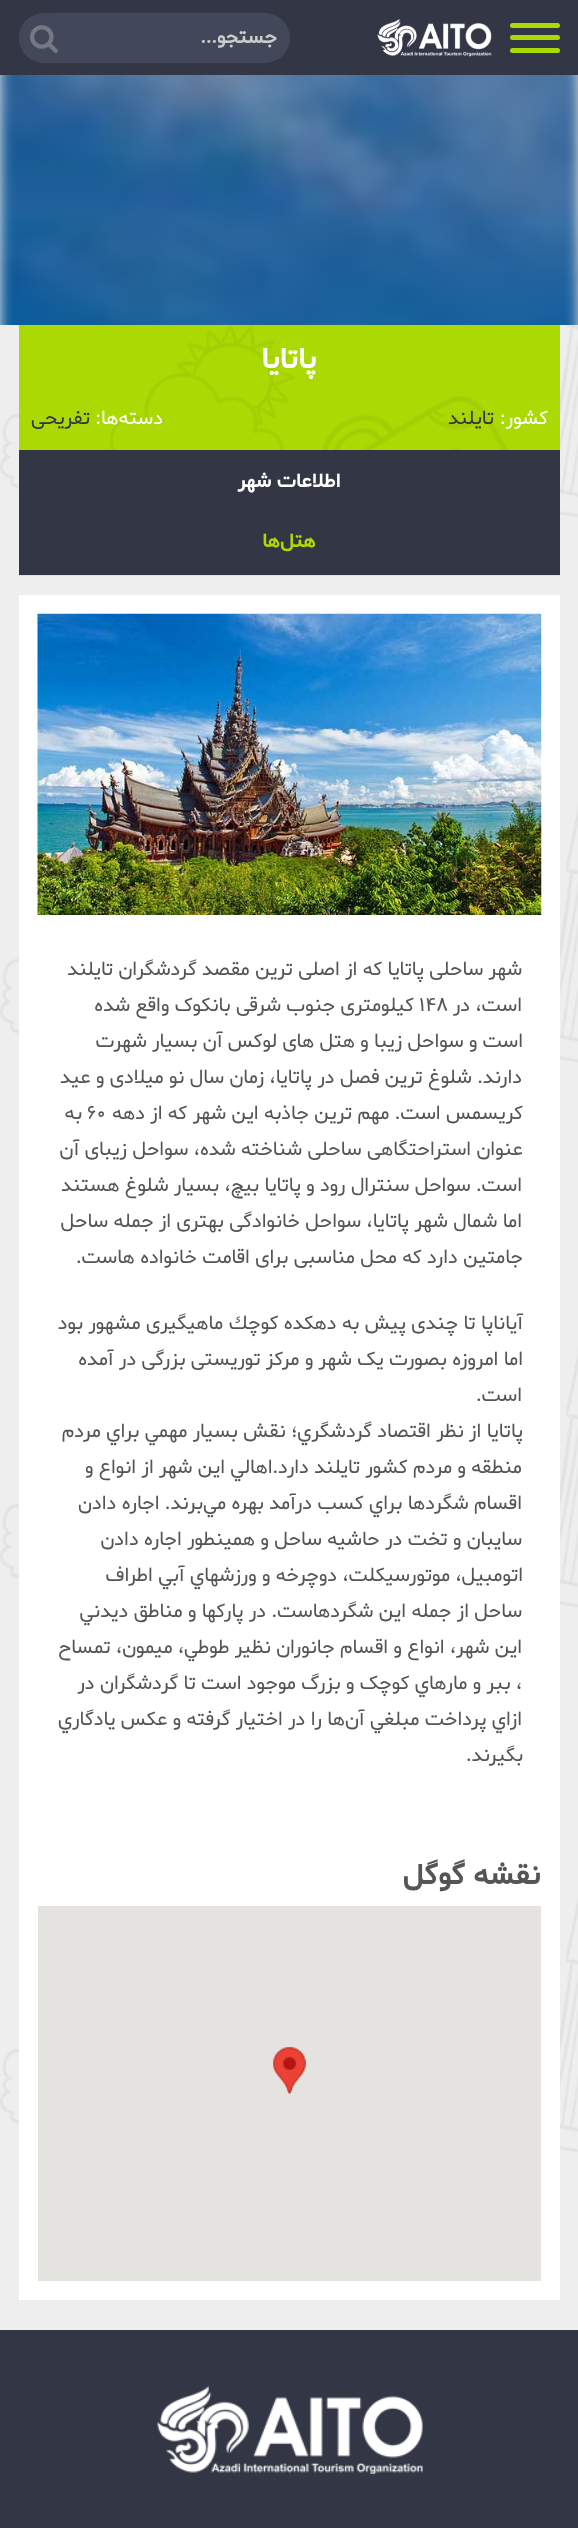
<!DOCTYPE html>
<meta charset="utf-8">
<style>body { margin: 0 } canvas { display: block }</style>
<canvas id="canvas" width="578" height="2528"></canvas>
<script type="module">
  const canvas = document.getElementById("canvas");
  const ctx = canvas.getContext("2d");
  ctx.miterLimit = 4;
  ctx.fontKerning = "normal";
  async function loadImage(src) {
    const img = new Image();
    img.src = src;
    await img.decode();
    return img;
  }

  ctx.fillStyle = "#eeeeee";
  ctx.fillRect(0, 0, 578, 2528);
  ctx.fillStyle = "#333745";
  ctx.fillRect(0, 0, 578, 75);
  ctx.fillStyle = "#abd904";
  ctx.beginPath();
  ctx.roundRect(510, 35, 50, 5, 2.5);
  ctx.fill();
  ctx.beginPath();
  ctx.roundRect(510, 23, 50, 5, 2.5);
  ctx.fill();
  ctx.beginPath();
  ctx.roundRect(510, 48, 50, 5, 2.5);
  ctx.fill();
  ctx.drawImage(await loadImage("img1.png"), 377, 18, 115, 39);
  ctx.fillStyle = "#424759";
  ctx.beginPath();
  ctx.roundRect(19, 13, 271, 50, 25);
  ctx.fill();
  ctx.direction = "rtl";
  ctx.font = "bold 20px 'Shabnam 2'";
  ctx.fillStyle = "#cccccc";
  ctx.fillText("جستجو...", 277, 43);
  ctx.fillStyle = "#424759";
  ctx.beginPath();
  ctx.arc(44, 38, 25, 0, Math.PI * 2);
  ctx.fill();
  ctx.drawImage(await loadImage("img2.png"), 30, 25, 28, 28);
  ctx.drawImage(await loadImage("img3.png"), 0, 264, 578, 1888);
  ctx.drawImage(await loadImage("img4.png"), 0, 75, 578, 250);
  ctx.fillStyle = "#abd904";
  ctx.fillRect(19, 325, 541, 125);
  ctx.drawImage(await loadImage("img5.png"), 110, 325, 398, 125);
  ctx.font = "bold 30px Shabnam";
  ctx.fillStyle = "#ffffff";
  ctx.fillText("پاتايا", 317, 368);
  ctx.font = "20px Shabnam";
  ctx.fillText("کشور:", 548, 424);
  ctx.fillStyle = "#333745";
  ctx.fillText("تایلند", 494, 424);
  ctx.fillStyle = "#ffffff";
  ctx.fillText("دسته‌ها:", 163, 424);
  ctx.fillStyle = "#333745";
  ctx.fillText("تفریحی", 90, 424);
  ctx.fillRect(19, 450, 541, 125);
  ctx.fillStyle = "#dddddd";
  ctx.fillRect(19, 575, 541, 1);
  ctx.font = "bold 20px Shabnam";
  ctx.fillStyle = "#ffffff";
  ctx.fillText("اطلاعات شهر", 341, 487);
  ctx.fillStyle = "#abd904";
  ctx.fillText("هتل‌ها", 316, 547);
  ctx.fillStyle = "#ffffff";
  ctx.fillRect(19, 595, 541, 1705);
  ctx.drawImage(await loadImage("img6.png"), 37, 613, 505, 302);
  ctx.font = "20px Shabnam";
  ctx.fillStyle = "#555555";
  ctx.fillText("شهر ساحلی پاتایا که از اصلی ترین مقصد گردشگران تایلند", 522, 975);
  ctx.fillText("است، در", 522, 1011);
  ctx.direction = "ltr";
  ctx.fillText("۱۴۸", 419, 1011);
  ctx.direction = "rtl";
  ctx.fillText("کیلومتری جنوب شرقی بانکوک واقع شده", 414, 1011);
  ctx.fillText("است و سواحل زیبا و هتل های لوکس آن بسیار شهرت", 523, 1047);
  ctx.fillText("دارند. شلوغ ترین فصل در پاتایا، زمان سال نو میلادی و عید", 522, 1083);
  ctx.fillText("کریسمس است. مهم ترین جاذبه این شهر که از دهه", 523, 1119);
  ctx.direction = "ltr";
  ctx.fillText("۶۰", 87, 1119);
  ctx.direction = "rtl";
  ctx.fillText("به", 82, 1119);
  ctx.fillText("عنوان استراحتگاهی ساحلی شناخته شده، سواحل زیبای آن", 523, 1155);
  ctx.fillText("است. سواحل سنترال رود و پاتایا بيچ، بسیار شلوغ هستند", 522, 1191);
  ctx.fillText("اما شمال شهر پاتایا، سواحل خانوادگی بهتری از جمله ساحل", 522, 1227);
  ctx.fillText("جامتین دارد که محل مناسبی برای اقامت خانواده هاست.", 523, 1263);
  ctx.fillText("آیاناپا تا چندی پیش به دهكده كوچك ماهیگیری مشهور بود", 523, 1329);
  ctx.fillText("اما امروزه بصورت یک شهر و مرکز توریستی بزرگی در آمده", 523, 1365);
  ctx.fillText("است.", 522, 1401);
  ctx.fillText("پاتایا از نظر اقتصاد گردشگري؛ نقش بسيار مهمي براي مردم", 523, 1437);
  ctx.fillText("منطقه و مردم کشور تايلند دارد.اهالي اين شهر از انواع و", 522, 1473);
  ctx.fillText("اقسام شگردها براي کسب درآمد بهره مي‌برند. اجاره دادن", 522, 1509);
  ctx.fillText("سايبان و تخت در حاشيه ساحل و همينطور اجاره دادن", 522, 1545);
  ctx.fillText("اتومبيل، موتورسيکلت، دوچرخه و ورزشهاي آبي اطراف", 523, 1581);
  ctx.fillText("ساحل از جمله اين شگردهاست. در پاركها و مناطق ديدني", 522, 1617);
  ctx.fillText("اين شهر، انواع و اقسام جانوران نظير طوطي، ميمون، تمساح", 522, 1653);
  ctx.fillText("، ببر و مارهاي کوچک و بزرگ موجود است تا گردشگران در", 522, 1689);
  ctx.fillText("ازاي پرداخت مبلغي آن‌ها را در اختيار گرفته و عکس يادگاري", 522, 1725);
  ctx.fillText("بگيرند.", 523, 1761);
  ctx.font = "bold 30px Shabnam";
  ctx.fillText("نقشه گوگل", 541, 1884);
  ctx.fillStyle = "#e5e3df";
  ctx.fillRect(38, 1906, 503, 375);
  ctx.drawImage(await loadImage("img7.png"), 273, 2047, 33, 47);
  ctx.fillStyle = "#333745";
  ctx.fillRect(0, 2330, 578, 198);
  ctx.drawImage(await loadImage("img8.png"), 157, 2386, 266, 88);
</script>
